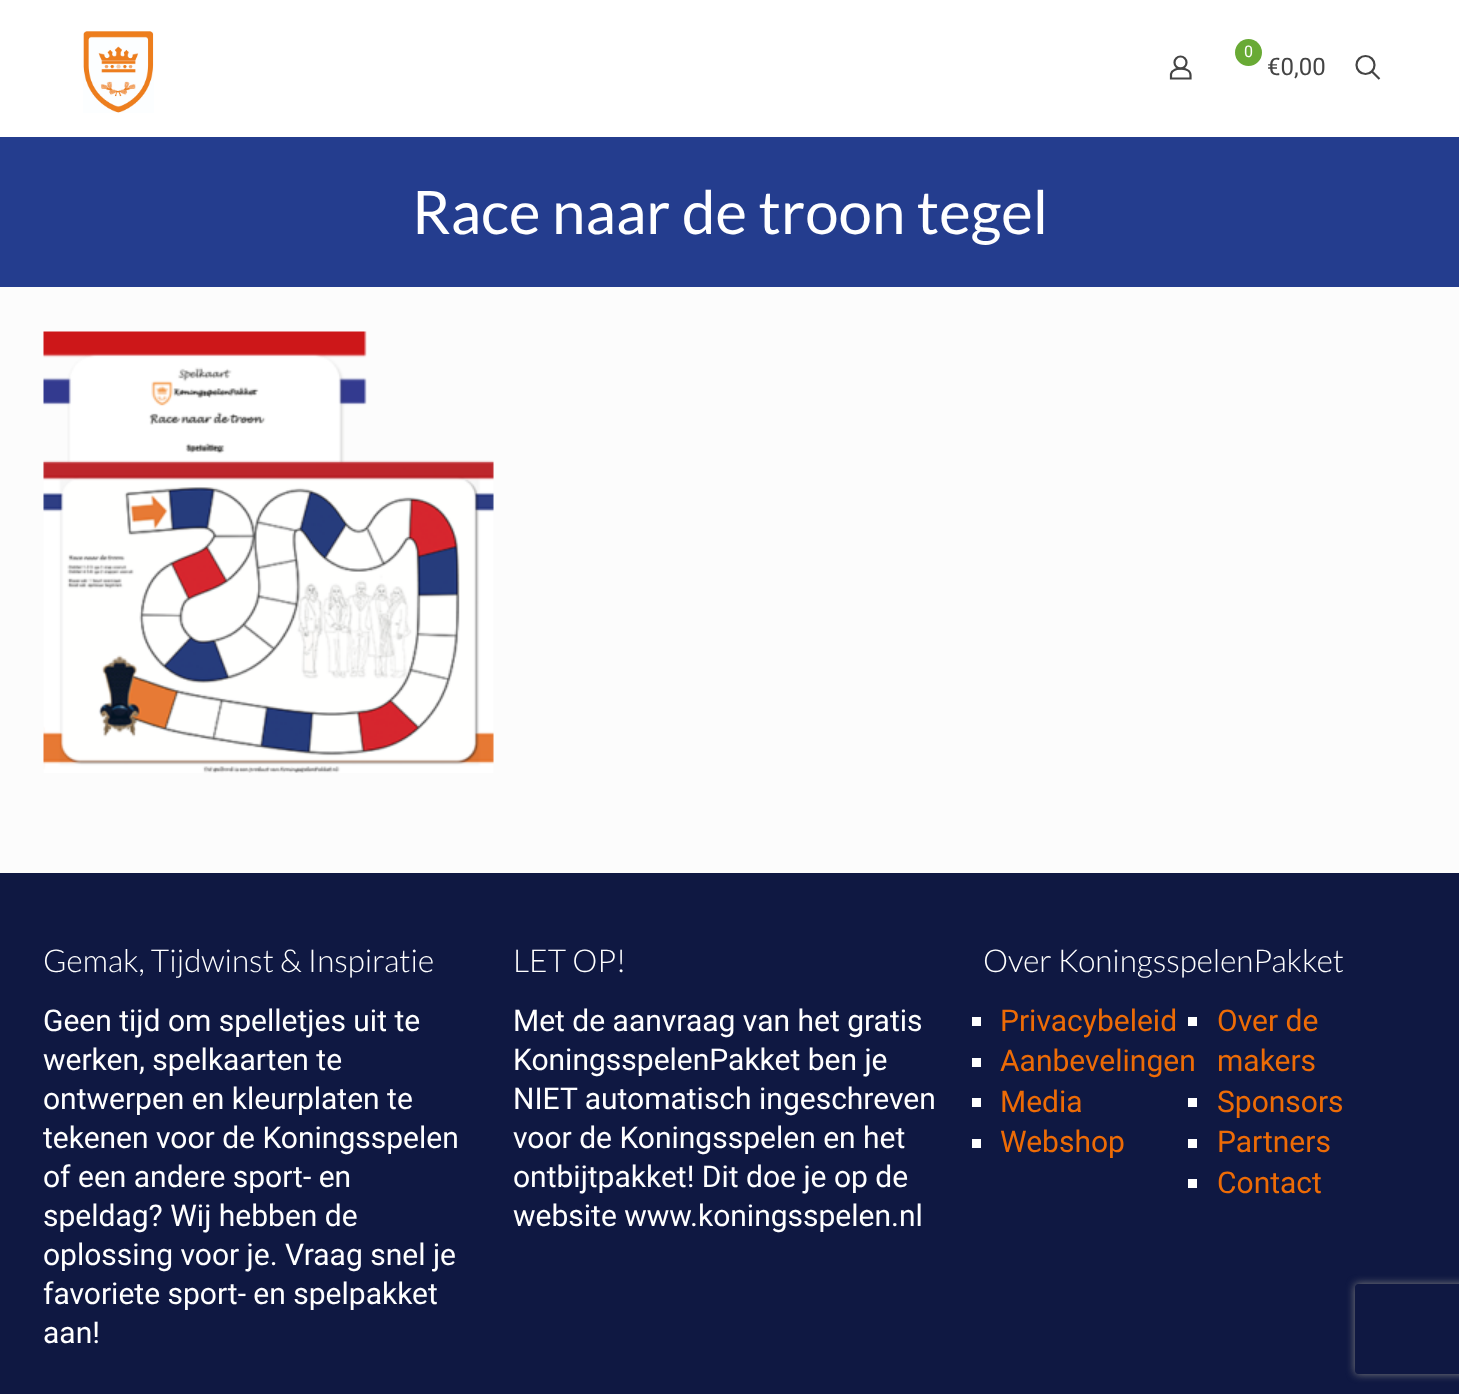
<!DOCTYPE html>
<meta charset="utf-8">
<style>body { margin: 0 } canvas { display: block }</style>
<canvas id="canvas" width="1459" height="1394"></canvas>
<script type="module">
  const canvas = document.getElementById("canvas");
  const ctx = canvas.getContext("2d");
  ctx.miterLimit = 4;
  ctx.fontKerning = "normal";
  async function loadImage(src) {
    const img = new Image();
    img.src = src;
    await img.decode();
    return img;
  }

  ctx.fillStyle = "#fcfcfc";
  ctx.fillRect(0, 0, 1459, 1394);
  ctx.fillStyle = "#ffffff";
  ctx.fillRect(0, 0, 1459, 137);
  ctx.drawImage(await loadImage("img1.png"), 83, 31, 71, 82);
  ctx.beginPath();
  ctx.arc(1180.5, 62.5, 6, 0, Math.PI * 2);
  ctx.strokeStyle = "#444444";
  ctx.lineWidth = 2.2;
  ctx.stroke();
  ctx.beginPath();
  ctx.moveTo(1190.5, 75);
  ctx.lineTo(1190.5, 78.5);
  ctx.lineTo(1171, 78.5);
  ctx.lineTo(1171, 74);
  ctx.bezierCurveTo(1173, 66.5, 1190.5, 67, 1190.5, 75);
  ctx.closePath();
  ctx.stroke();
  ctx.fillStyle = "#69aa35";
  ctx.beginPath();
  ctx.arc(1248.5, 52.5, 13.5, 0, Math.PI * 2);
  ctx.fill();
  ctx.font = "16px Roboto";
  ctx.fillStyle = "#ffffff";
  ctx.fillText("0", 1244, 57);
  ctx.font = "24px Roboto";
  ctx.fillStyle = "#444444";
  ctx.fillText("€0,00", 1267, 75);
  ctx.beginPath();
  ctx.arc(1365.5, 65, 9, 0, Math.PI * 2);
  ctx.stroke();
  ctx.beginPath();
  ctx.moveTo(1372, 71.5);
  ctx.lineTo(1379.5, 79);
  ctx.stroke();
  ctx.fillStyle = "#243d8e";
  ctx.fillRect(0, 137, 1459, 150);
  ctx.font = "60px Lato";
  ctx.fillStyle = "#ffffff";
  ctx.fillText("Race naar de troon tegel", 412, 234);
  ctx.drawImage(await loadImage("img2.png"), 43, 331, 451, 442);
  ctx.fillStyle = "#0f1842";
  ctx.fillRect(0, 873, 1459, 521);
  ctx.font = "300 31.5px Lato";
  ctx.fillStyle = "#ffffff";
  ctx.fillText("Gemak, Tijdwinst & Inspiratie", 43, 972);
  ctx.font = "30px Roboto";
  ctx.fillText("Geen tijd om spelletjes uit te", 43, 1031);
  ctx.fillText("werken, spelkaarten te", 43, 1070);
  ctx.fillText("ontwerpen en kleurplaten te", 43, 1109);
  ctx.fillText("tekenen voor de Koningsspelen", 43, 1148);
  ctx.fillText("of een andere sport- en", 43, 1187);
  ctx.fillText("speldag? Wij hebben de", 43, 1226);
  ctx.fillText("oplossing voor je. Vraag snel je", 43, 1265);
  ctx.fillText("favoriete sport- en spelpakket", 43, 1304);
  ctx.fillText("aan!", 43, 1343);
  ctx.font = "300 31.5px Lato";
  ctx.fillText("LET OP!", 513, 972);
  ctx.font = "30px Roboto";
  ctx.fillText("Met de aanvraag van het gratis", 513, 1031);
  ctx.fillText("KoningsspelenPakket ben je", 513, 1070);
  ctx.fillText("NIET automatisch ingeschreven", 513, 1109);
  ctx.fillText("voor de Koningsspelen en het", 513, 1148);
  ctx.fillText("ontbijtpakket! Dit doe je op de", 513, 1187);
  ctx.fillText("website www.koningsspelen.nl", 513, 1226);
  ctx.font = "300 31.5px Lato";
  ctx.fillText("Over KoningsspelenPakket", 983, 972);
  ctx.fillRect(972, 1017, 9, 9);
  ctx.font = "30px Roboto";
  ctx.fillStyle = "#ed6b06";
  ctx.fillText("Privacybeleid", 1000, 1031);
  ctx.fillStyle = "#ffffff";
  ctx.fillRect(972, 1058, 9, 9);
  ctx.fillStyle = "#ed6b06";
  ctx.fillText("Aanbevelingen", 1000, 1071);
  ctx.fillStyle = "#ffffff";
  ctx.fillRect(972, 1098, 9, 9);
  ctx.fillStyle = "#ed6b06";
  ctx.fillText("Media", 1000, 1112);
  ctx.fillStyle = "#ffffff";
  ctx.fillRect(972, 1139, 9, 9);
  ctx.fillStyle = "#ed6b06";
  ctx.fillText("Webshop", 1000, 1152);
  ctx.fillStyle = "#ffffff";
  ctx.fillRect(1188, 1017, 9, 9);
  ctx.fillStyle = "#ed6b06";
  ctx.fillText("Over de", 1217, 1031);
  ctx.fillText("makers", 1217, 1071);
  ctx.fillStyle = "#ffffff";
  ctx.fillRect(1188, 1098, 9, 9);
  ctx.fillStyle = "#ed6b06";
  ctx.fillText("Sponsors", 1217, 1112);
  ctx.fillStyle = "#ffffff";
  ctx.fillRect(1188, 1139, 9, 9);
  ctx.fillStyle = "#ed6b06";
  ctx.fillText("Partners", 1217, 1152);
  ctx.fillStyle = "#ffffff";
  ctx.fillRect(1188, 1179, 9, 9);
  ctx.fillStyle = "#ed6b06";
  ctx.fillText("Contact", 1217, 1193);
  ctx.save();
  ctx.beginPath();
  ctx.moveTo(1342, 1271);
  ctx.lineTo(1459, 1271);
  ctx.lineTo(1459, 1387);
  ctx.lineTo(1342, 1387);
  ctx.closePath();
  ctx.moveTo(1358, 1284);
  ctx.lineTo(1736, 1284);
  ctx.bezierCurveTo(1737.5, 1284, 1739, 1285.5, 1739, 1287);
  ctx.lineTo(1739, 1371);
  ctx.bezierCurveTo(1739, 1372.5, 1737.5, 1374, 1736, 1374);
  ctx.lineTo(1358, 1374);
  ctx.bezierCurveTo(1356.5, 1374, 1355, 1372.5, 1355, 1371);
  ctx.lineTo(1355, 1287);
  ctx.bezierCurveTo(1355, 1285.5, 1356.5, 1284, 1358, 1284);
  ctx.closePath();
  ctx.clip("evenodd");
  ctx.fillStyle = "#808080";
  ctx.filter = "blur(4px)";
  ctx.beginPath();
  ctx.roundRect(1355, 1284, 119, 90, 3);
  ctx.fill();
  ctx.filter = "none";
  ctx.restore();
</script>
